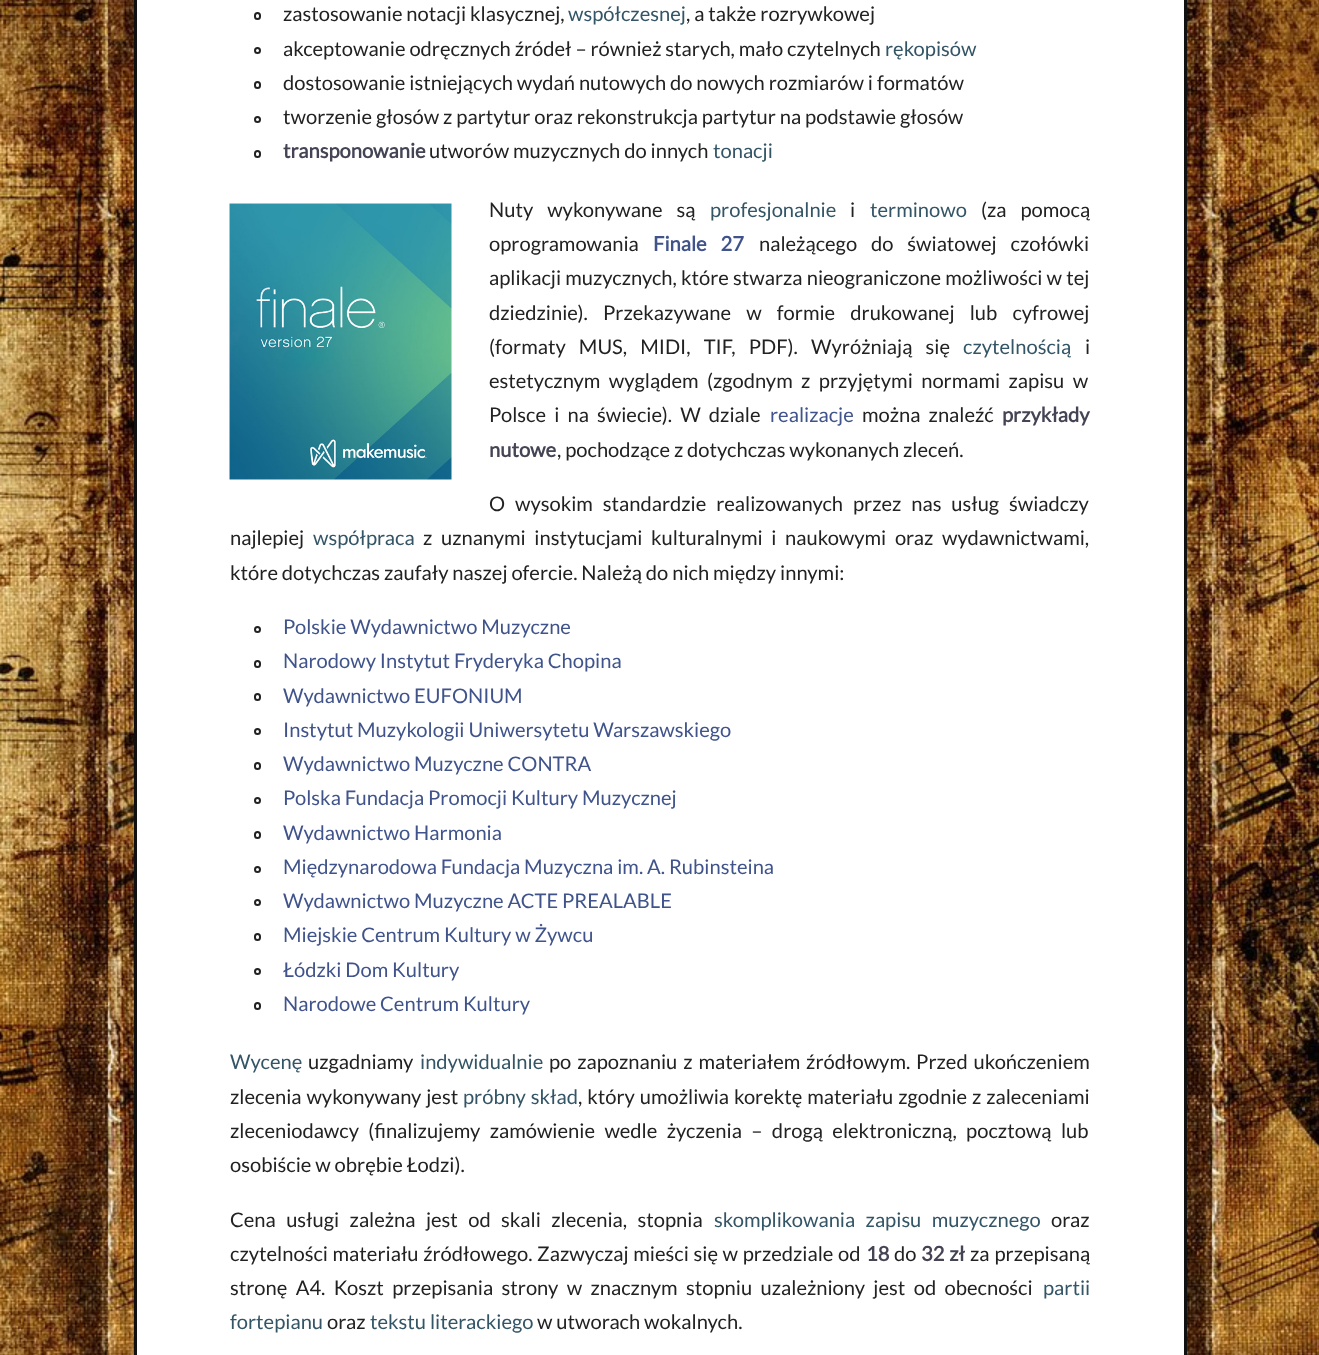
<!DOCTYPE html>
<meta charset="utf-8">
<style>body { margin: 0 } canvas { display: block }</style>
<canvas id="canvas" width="1319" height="1355"></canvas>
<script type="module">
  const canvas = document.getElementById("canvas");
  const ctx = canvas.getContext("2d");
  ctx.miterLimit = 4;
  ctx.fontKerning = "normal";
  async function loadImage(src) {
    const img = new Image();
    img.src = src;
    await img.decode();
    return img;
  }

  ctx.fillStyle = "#ffffff";
  ctx.fillRect(0, 0, 1319, 1355);
  ctx.drawImage(await loadImage("img1.png"), 0, 0, 1319, 1355);
  ctx.fillStyle = "#111111";
  ctx.fillRect(1184, 0, 3, 1355);
  ctx.fillRect(134, 0, 3, 1355);
  ctx.fillStyle = "#ffffff";
  ctx.fillRect(137, 0, 1047, 1355);
  ctx.beginPath();
  ctx.roundRect(255, 13, 5, 6, 2.5);
  ctx.strokeStyle = "#222222";
  ctx.lineWidth = 2;
  ctx.stroke();
  ctx.font = "20.15px Lato";
  ctx.fillStyle = "#222222";
  ctx.fillText("zastosowanie notacji klasycznej,", 283, 21);
  ctx.fillStyle = "#335566";
  ctx.fillText("współczesnej", 568, 21);
  ctx.fillStyle = "#222222";
  ctx.fillText(", a także rozrywkowej", 686, 21);
  ctx.beginPath();
  ctx.arc(257.5, 50.5, 2.5, 0, Math.PI * 2);
  ctx.stroke();
  ctx.fillText("akceptowanie odręcznych źródeł – również starych, mało czytelnych", 283, 56);
  ctx.fillStyle = "#335566";
  ctx.fillText("rękopisów", 885, 56);
  ctx.beginPath();
  ctx.roundRect(255, 82, 5, 6, 2.5);
  ctx.stroke();
  ctx.fillStyle = "#222222";
  ctx.fillText("dostosowanie istniejących wydań nutowych do nowych rozmiarów i formatów", 283, 90);
  ctx.beginPath();
  ctx.arc(257.5, 119.5, 2.5, 0, Math.PI * 2);
  ctx.stroke();
  ctx.fillText("tworzenie głosów z partytur oraz rekonstrukcja partytur na podstawie głosów", 283, 124);
  ctx.beginPath();
  ctx.roundRect(255, 151, 5, 6, 2.5);
  ctx.stroke();
  ctx.font = "bold 20.15px Lato";
  ctx.fillStyle = "#444455";
  ctx.fillText("transponowanie", 283, 158);
  ctx.font = "20.15px Lato";
  ctx.fillStyle = "#222222";
  ctx.fillText("utworów muzycznych do innych", 429, 158);
  ctx.fillStyle = "#335566";
  ctx.fillText("tonacji", 713, 158);
  ctx.drawImage(await loadImage("img2.png"), 229, 203, 223, 277);
  ctx.wordSpacing = "10px";
  ctx.fillStyle = "#222222";
  ctx.fillText("Nuty wykonywane są", 489, 217);
  ctx.wordSpacing = "0px";
  ctx.fillStyle = "#335566";
  ctx.fillText("profesjonalnie", 710, 217);
  ctx.fillStyle = "#222222";
  ctx.fillText("i", 850, 217);
  ctx.fillStyle = "#335566";
  ctx.fillText("terminowo", 870, 217);
  ctx.wordSpacing = "10px";
  ctx.fillStyle = "#222222";
  ctx.fillText("(za pomocą", 981, 217);
  ctx.wordSpacing = "0px";
  ctx.fillText("oprogramowania", 489, 251);
  ctx.wordSpacing = "10px";
  ctx.font = "bold 20.15px Lato";
  ctx.fillStyle = "#40548b";
  ctx.fillText("Finale 27", 653, 251);
  ctx.font = "20.15px Lato";
  ctx.fillStyle = "#222222";
  ctx.fillText("należącego do światowej czołówki", 759, 251);
  ctx.wordSpacing = "0.25px";
  ctx.fillText("aplikacji muzycznych, które stwarza nieograniczone możliwości w tej", 489, 285);
  ctx.wordSpacing = "11.25px";
  ctx.fillText("dziedzinie). Przekazywane w formie drukowanej lub cyfrowej", 489, 320);
  ctx.wordSpacing = "9.25px";
  ctx.fillText("(formaty MUS, MIDI, TIF, PDF). Wyróżniają się", 489, 354);
  ctx.wordSpacing = "0px";
  ctx.fillStyle = "#335566";
  ctx.fillText("czytelnością", 963, 354);
  ctx.fillStyle = "#222222";
  ctx.fillText("i", 1085, 354);
  ctx.wordSpacing = "4.5px";
  ctx.fillText("estetycznym wyglądem (zgodnym z przyjętymi normami zapisu w", 489, 388);
  ctx.wordSpacing = "4.25px";
  ctx.fillText("Polsce i na świecie). W dziale", 489, 422);
  ctx.wordSpacing = "0px";
  ctx.fillStyle = "#40548b";
  ctx.fillText("realizacje", 770, 422);
  ctx.wordSpacing = "4.25px";
  ctx.fillStyle = "#222222";
  ctx.fillText("można znaleźć", 862, 422);
  ctx.wordSpacing = "0px";
  ctx.font = "bold 20.15px Lato";
  ctx.fillStyle = "#444455";
  ctx.fillText("przykłady", 1002, 422);
  ctx.fillText("nutowe", 489, 457);
  ctx.font = "20.15px Lato";
  ctx.fillStyle = "#222222";
  ctx.fillText(", pochodzące z dotychczas wykonanych zleceń.", 557, 457);
  ctx.wordSpacing = "6px";
  ctx.fillText("O wysokim standardzie realizowanych przez nas usług świadczy", 489, 511);
  ctx.wordSpacing = "0px";
  ctx.fillText("najlepiej", 230, 545);
  ctx.fillStyle = "#335566";
  ctx.fillText("współpraca", 313, 545);
  ctx.wordSpacing = "4.75px";
  ctx.fillStyle = "#222222";
  ctx.fillText("z uznanymi instytucjami kulturalnymi i naukowymi oraz wydawnictwami,", 423, 545);
  ctx.wordSpacing = "0px";
  ctx.fillText("które dotychczas zaufały naszej ofercie. Należą do nich między innymi:", 230, 580);
  ctx.beginPath();
  ctx.arc(257.5, 629.5, 2.5, 0, Math.PI * 2);
  ctx.stroke();
  ctx.fillStyle = "#40548b";
  ctx.fillText("Polskie Wydawnictwo Muzyczne", 283, 634);
  ctx.beginPath();
  ctx.roundRect(255, 661, 5, 6, 2.5);
  ctx.stroke();
  ctx.fillText("Narodowy Instytut Fryderyka Chopina", 283, 668);
  ctx.beginPath();
  ctx.roundRect(255, 694, 5, 6, 2.5);
  ctx.stroke();
  ctx.fillText("Wydawnictwo EUFONIUM", 283, 703);
  ctx.beginPath();
  ctx.arc(257.5, 731.5, 2.5, 0, Math.PI * 2);
  ctx.stroke();
  ctx.fillText("Instytut Muzykologii Uniwersytetu Warszawskiego", 283, 737);
  ctx.beginPath();
  ctx.roundRect(255, 763, 5, 6, 2.5);
  ctx.stroke();
  ctx.fillText("Wydawnictwo Muzyczne CONTRA", 283, 771);
  ctx.beginPath();
  ctx.arc(257.5, 800.5, 2.5, 0, Math.PI * 2);
  ctx.stroke();
  ctx.fillText("Polska Fundacja Promocji Kultury Muzycznej", 283, 805);
  ctx.beginPath();
  ctx.roundRect(255, 832, 5, 6, 2.5);
  ctx.stroke();
  ctx.fillText("Wydawnictwo Harmonia", 283, 840);
  ctx.beginPath();
  ctx.arc(257.5, 869.5, 2.5, 0, Math.PI * 2);
  ctx.stroke();
  ctx.fillText("Międzynarodowa Fundacja Muzyczna im. A. Rubinsteina", 283, 874);
  ctx.beginPath();
  ctx.arc(257.5, 902.5, 2.5, 0, Math.PI * 2);
  ctx.stroke();
  ctx.fillText("Wydawnictwo Muzyczne ACTE PREALABLE", 283, 908);
  ctx.beginPath();
  ctx.roundRect(255, 934, 5, 6, 2.5);
  ctx.stroke();
  ctx.fillText("Miejskie Centrum Kultury w Żywcu", 283, 942);
  ctx.beginPath();
  ctx.arc(257.5, 971.5, 2.5, 0, Math.PI * 2);
  ctx.stroke();
  ctx.fillText("Łódzki Dom Kultury", 283, 977);
  ctx.beginPath();
  ctx.roundRect(255, 1003, 5, 6, 2.5);
  ctx.stroke();
  ctx.fillText("Narodowe Centrum Kultury", 283, 1011);
  ctx.fillStyle = "#335566";
  ctx.fillText("Wycenę", 230, 1069);
  ctx.fillStyle = "#222222";
  ctx.fillText("uzgadniamy", 308, 1069);
  ctx.fillStyle = "#335566";
  ctx.fillText("indywidualnie", 420, 1069);
  ctx.wordSpacing = "2px";
  ctx.fillStyle = "#222222";
  ctx.fillText("po zapoznaniu z materiałem źródłowym. Przed ukończeniem", 549, 1069);
  ctx.wordSpacing = "1px";
  ctx.fillText("zlecenia wykonywany jest", 230, 1104);
  ctx.fillStyle = "#335566";
  ctx.fillText("próbny skład", 463, 1104);
  ctx.fillStyle = "#222222";
  ctx.fillText(", który umożliwia korektę materiału zgodnie z zaleceniami", 578, 1104);
  ctx.wordSpacing = "5.5px";
  ctx.fillText("zleceniodawcy (finalizujemy zamówienie wedle życzenia – drogą elektroniczną, pocztową lub", 230, 1138);
  ctx.wordSpacing = "0px";
  ctx.fillText("osobiście w obrębie Łodzi).", 230, 1172);
  ctx.wordSpacing = "6.5px";
  ctx.fillText("Cena usługi zależna jest od skali zlecenia, stopnia", 230, 1227);
  ctx.fillStyle = "#335566";
  ctx.fillText("skomplikowania zapisu muzycznego", 714, 1227);
  ctx.wordSpacing = "0px";
  ctx.fillStyle = "#222222";
  ctx.fillText("oraz", 1051, 1227);
  ctx.wordSpacing = "0.75px";
  ctx.fillText("czytelności materiału źródłowego. Zazwyczaj mieści się w przedziale od", 230, 1261);
  ctx.wordSpacing = "0px";
  ctx.font = "bold 20.15px Lato";
  ctx.fillStyle = "#444455";
  ctx.fillText("18", 866, 1261);
  ctx.font = "20.15px Lato";
  ctx.fillStyle = "#222222";
  ctx.fillText("do", 894, 1261);
  ctx.wordSpacing = "1px";
  ctx.font = "bold 20.15px Lato";
  ctx.fillStyle = "#444455";
  ctx.fillText("32 zł", 921, 1261);
  ctx.font = "20.15px Lato";
  ctx.fillStyle = "#222222";
  ctx.fillText("za przepisaną", 970, 1261);
  ctx.wordSpacing = "4.5px";
  ctx.fillText("stronę A4. Koszt przepisania strony w znacznym stopniu uzależniony jest od obecności", 230, 1295);
  ctx.wordSpacing = "0px";
  ctx.fillStyle = "#335566";
  ctx.fillText("partii", 1043, 1295);
  ctx.fillText("fortepianu", 230, 1329);
  ctx.fillStyle = "#222222";
  ctx.fillText("oraz", 327, 1329);
  ctx.fillStyle = "#335566";
  ctx.fillText("tekstu literackiego", 370, 1329);
  ctx.fillStyle = "#222222";
  ctx.fillText("w utworach wokalnych.", 537, 1329);
</script>
